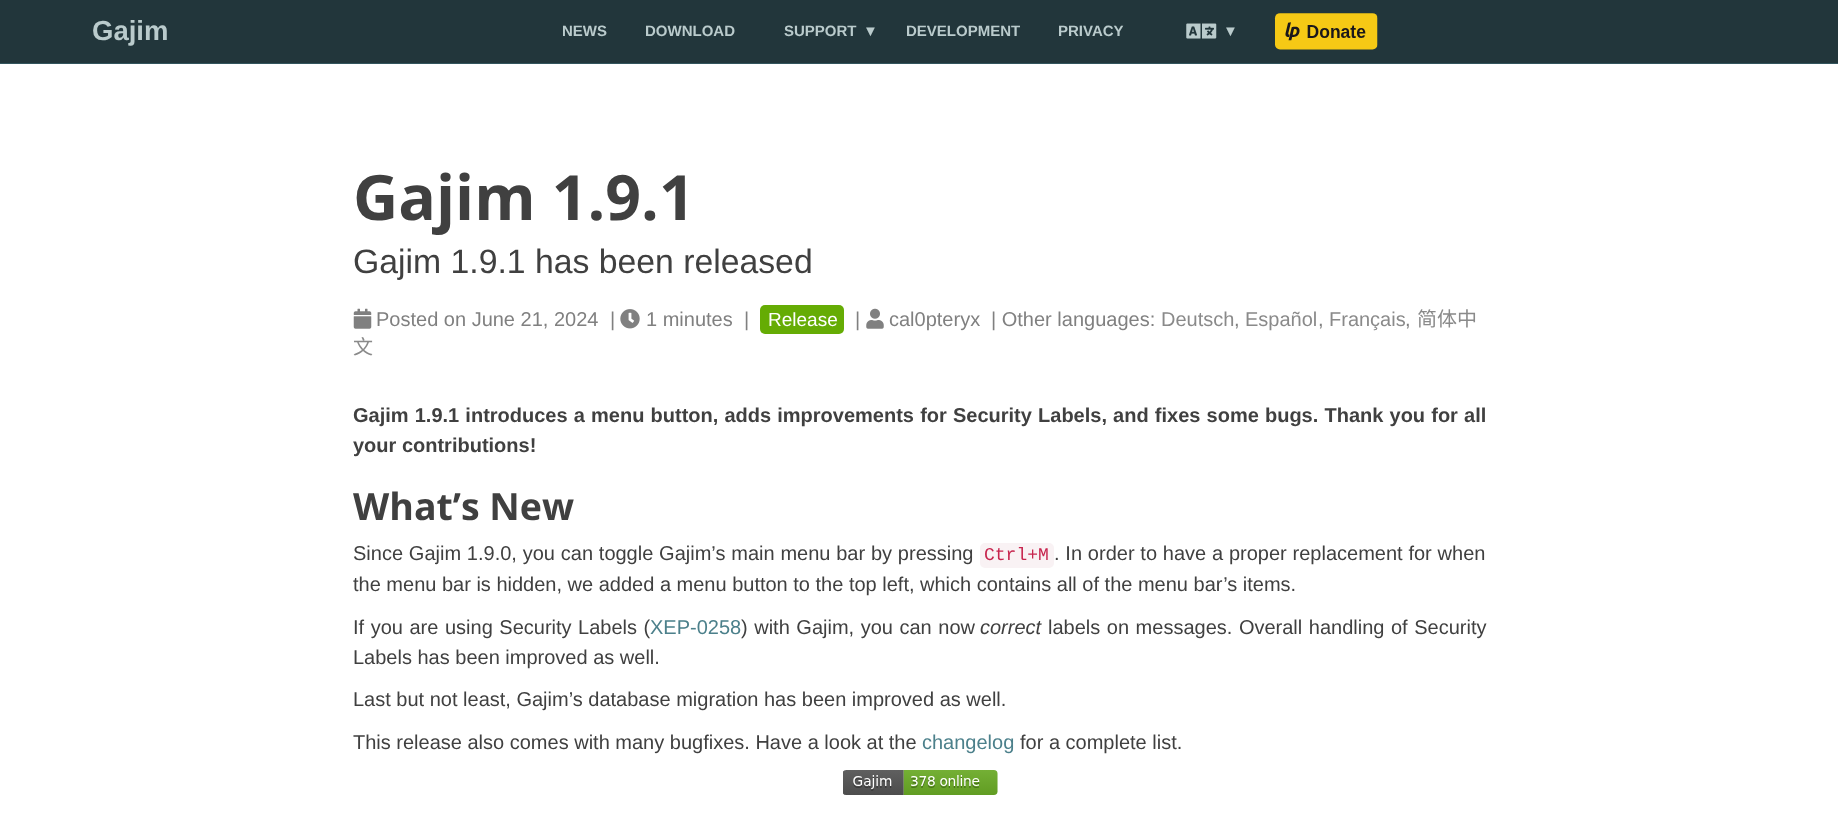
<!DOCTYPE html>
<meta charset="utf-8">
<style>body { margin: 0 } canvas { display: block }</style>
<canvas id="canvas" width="1838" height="814"></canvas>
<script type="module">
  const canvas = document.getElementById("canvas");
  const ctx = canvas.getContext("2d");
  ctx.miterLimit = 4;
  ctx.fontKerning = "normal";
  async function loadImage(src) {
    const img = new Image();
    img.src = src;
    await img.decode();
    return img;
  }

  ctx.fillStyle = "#ffffff";
  ctx.fillRect(0, 0, 1838, 814);
  ctx.fillStyle = "#22363b";
  ctx.fillRect(0, 0, 1838, 63);
  ctx.fillStyle = "#33555d";
  ctx.fillRect(0, 63, 1838, 1);
  ctx.font = "bold 27.5px Liberation Sans";
  ctx.fillStyle = "#bacbcc";
  ctx.fillText("Gajim", 92, 40);
  ctx.font = "bold 15px Liberation Sans";
  ctx.fillText("NEWS", 562, 36);
  ctx.fillText("DOWNLOAD", 645, 36);
  ctx.fillText("SUPPORT", 784, 36);
  ctx.fillText("▼", 863, 36);
  ctx.fillText("DEVELOPMENT", 906, 36);
  ctx.fillText("PRIVACY", 1058, 36);
  ctx.drawImage(await loadImage("img1.png"), 1186, 23, 31, 16);
  ctx.fillText("▼", 1223, 36);
  ctx.drawImage(await loadImage("img2.png"), 1274, 13, 104, 37);
  ctx.font = "bold 62.5px Open Sans";
  ctx.fillStyle = "#404040";
  ctx.fillText("Gajim 1.9.1", 353, 220);
  ctx.font = "33.75px Liberation Sans";
  ctx.fillText("Gajim 1.9.1 has been released", 353, 273);
  ctx.drawImage(await loadImage("img3.png"), 353, 308, 19, 21);
  ctx.font = "20px Liberation Sans";
  ctx.fillStyle = "#808080";
  ctx.fillText("Posted on June 21, 2024", 376, 326);
  ctx.fillText("|", 610, 326);
  ctx.drawImage(await loadImage("img4.png"), 620, 309, 20, 20);
  ctx.fillText("1 minutes", 646, 326);
  ctx.fillText("|", 744, 326);
  ctx.fillStyle = "#65ac04";
  ctx.beginPath();
  ctx.roundRect(760, 305, 84, 29, 5);
  ctx.fill();
  ctx.font = "19px Liberation Sans";
  ctx.fillStyle = "#ffffff";
  ctx.fillText("Release", 768, 326);
  ctx.font = "20px Liberation Sans";
  ctx.fillStyle = "#808080";
  ctx.fillText("|", 855, 326);
  ctx.drawImage(await loadImage("img5.png"), 866, 308, 18, 21);
  ctx.fillText("cal0pteryx", 889, 326);
  ctx.fillText("| Other languages:", 991, 326);
  ctx.fillStyle = "#8a8a8a";
  ctx.fillText("Deutsch", 1161, 326);
  ctx.fillStyle = "#808080";
  ctx.fillText(",", 1234, 326);
  ctx.fillStyle = "#8a8a8a";
  ctx.fillText("Español", 1245, 326);
  ctx.fillStyle = "#808080";
  ctx.fillText(",", 1318, 326);
  ctx.fillStyle = "#8a8a8a";
  ctx.fillText("Français", 1329, 326);
  ctx.fillStyle = "#808080";
  ctx.fillText(",", 1405, 326);
  ctx.font = "20px Noto Sans CJK SC";
  ctx.fillStyle = "#8a8a8a";
  ctx.fillText("简体中", 1417, 326);
  ctx.fillText("文", 353, 354);
  ctx.wordSpacing = "0.6px";
  ctx.font = "bold 20px Liberation Sans";
  ctx.fillStyle = "#404040";
  ctx.fillText("Gajim 1.9.1 introduces a menu button, adds improvements for Security Labels, and fixes some bugs. Thank you for all", 353, 422);
  ctx.wordSpacing = "0px";
  ctx.fillText("your contributions!", 353, 452);
  ctx.font = "bold 37.5px Open Sans";
  ctx.fillText("What’s New", 353, 520);
  ctx.wordSpacing = "0.25px";
  ctx.font = "20px Liberation Sans";
  ctx.fillText("Since Gajim 1.9.0, you can toggle Gajim’s main menu bar by pressing", 353, 560);
  ctx.fillStyle = "#f9f2f4";
  ctx.beginPath();
  ctx.roundRect(980, 543, 74, 25, 5);
  ctx.fill();
  ctx.wordSpacing = "0px";
  ctx.font = "18px Liberation Mono";
  ctx.fillStyle = "#c7254e";
  ctx.fillText("Ctrl+M", 984, 560);
  ctx.wordSpacing = "0.25px";
  ctx.font = "20px Liberation Sans";
  ctx.fillStyle = "#404040";
  ctx.fillText(". In order to have a proper replacement for when", 1054, 560);
  ctx.wordSpacing = "0px";
  ctx.fillText("the menu bar is hidden, we added a menu button to the top left, which contains all of the menu bar’s items.", 353, 591);
  ctx.wordSpacing = "1px";
  ctx.fillText("If you are using Security Labels (", 353, 634);
  ctx.wordSpacing = "0px";
  ctx.fillStyle = "#4c808b";
  ctx.fillText("XEP-0258", 650, 634);
  ctx.wordSpacing = "1px";
  ctx.fillStyle = "#404040";
  ctx.fillText(") with Gajim, you can now", 741, 634);
  ctx.wordSpacing = "0px";
  ctx.font = "italic 20px Liberation Sans";
  ctx.fillText("correct", 980, 634);
  ctx.wordSpacing = "1px";
  ctx.font = "20px Liberation Sans";
  ctx.fillText("labels on messages. Overall handling of Security", 1048, 634);
  ctx.wordSpacing = "0px";
  ctx.fillText("Labels has been improved as well.", 353, 664);
  ctx.fillText("Last but not least, Gajim’s database migration has been improved as well.", 353, 706);
  ctx.fillText("This release also comes with many bugfixes. Have a look at the", 353, 749);
  ctx.fillStyle = "#4c808b";
  ctx.fillText("changelog", 922, 749);
  ctx.fillStyle = "#404040";
  ctx.fillText("for a complete list.", 1020, 749);
  ctx.drawImage(await loadImage("img6.png"), 843, 770, 155, 25);
</script>
